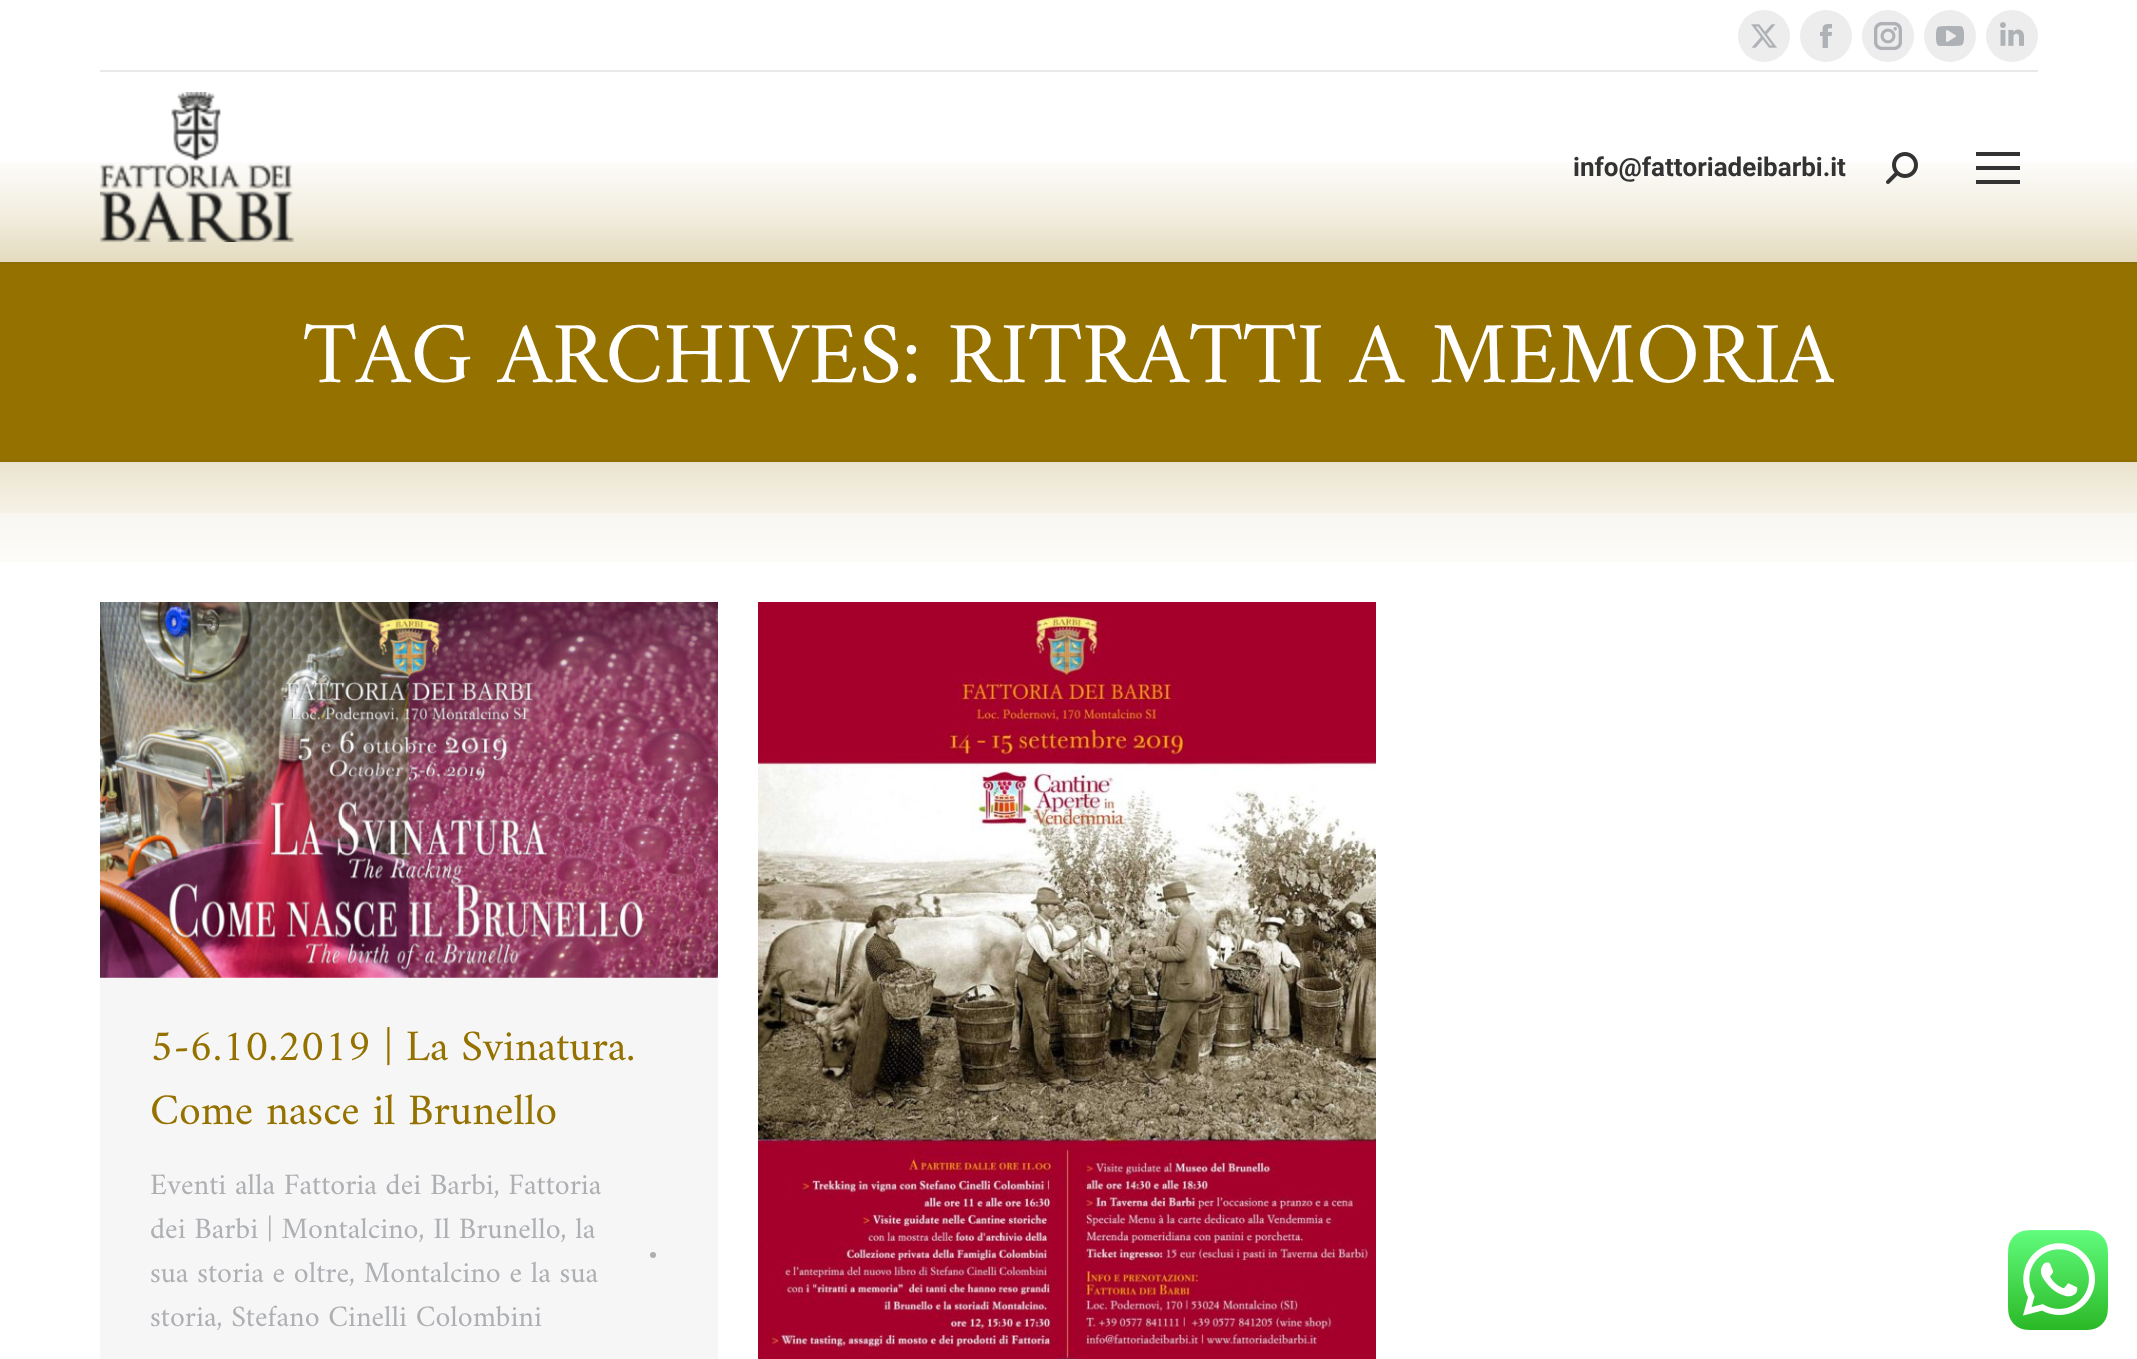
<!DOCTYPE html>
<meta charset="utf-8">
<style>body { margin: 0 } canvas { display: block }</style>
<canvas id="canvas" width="2137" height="1359"></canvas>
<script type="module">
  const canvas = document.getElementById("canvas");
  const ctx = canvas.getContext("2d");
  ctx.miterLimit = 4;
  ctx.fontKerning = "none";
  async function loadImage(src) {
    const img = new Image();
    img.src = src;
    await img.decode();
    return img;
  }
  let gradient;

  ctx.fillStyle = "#ffffff";
  ctx.fillRect(0, 0, 2137, 1359);
  ctx.fillStyle = "#957100";
  ctx.fillRect(0, 162, 2137, 400);
  ctx.fillStyle = "#8e6d03";
  ctx.fillRect(0, 262, 2137, 2);
  gradient = ctx.createLinearGradient(1069, 262, 1069, 0);
  gradient.addColorStop(0, "rgba(255, 255, 255, 0.75)");
  gradient.addColorStop(0.08, "rgba(255, 255, 255, 0.8)");
  gradient.addColorStop(0.15, "rgba(255, 255, 255, 0.86)");
  gradient.addColorStop(0.23, "rgba(255, 255, 255, 0.9)");
  gradient.addColorStop(0.31, "rgba(255, 255, 255, 0.94)");
  gradient.addColorStop(0.38, "rgba(255, 255, 255, 0.98)");
  gradient.addColorStop(0.46, "rgba(255, 255, 255, 0.99)");
  gradient.addColorStop(0.53, "#ffffff");
  ctx.fillStyle = gradient;
  ctx.fillRect(0, 162, 2137, 100);
  ctx.fillStyle = "#ededed";
  ctx.beginPath();
  ctx.arc(1764, 36, 26, 0, Math.PI * 2);
  ctx.fill();
  ctx.drawImage(await loadImage("img1.png"), 1751, 24, 26, 24);
  ctx.beginPath();
  ctx.arc(1826, 36, 26, 0, Math.PI * 2);
  ctx.fill();
  ctx.drawImage(await loadImage("img2.png"), 1820, 24, 12, 24);
  ctx.beginPath();
  ctx.arc(1888, 36, 26, 0, Math.PI * 2);
  ctx.fill();
  ctx.drawImage(await loadImage("img3.png"), 1874, 22, 28, 28);
  ctx.beginPath();
  ctx.arc(1950, 36, 26, 0, Math.PI * 2);
  ctx.fill();
  ctx.drawImage(await loadImage("img4.png"), 1936, 26, 28, 20);
  ctx.beginPath();
  ctx.arc(2012, 36, 26, 0, Math.PI * 2);
  ctx.fill();
  ctx.drawImage(await loadImage("img5.png"), 2000, 22, 24, 24);
  ctx.fillStyle = "#e9e9e9";
  ctx.fillRect(100, 70, 1938, 2);
  ctx.drawImage(await loadImage("img6.png"), 100, 92, 194, 150);
  ctx.font = "bold 26px Roboto";
  ctx.fillStyle = "#333333";
  ctx.fillText("info@fattoriadeibarbi.it", 1573, 176);
  ctx.drawImage(await loadImage("img7.png"), 1886, 152, 32, 32);
  ctx.fillRect(1976, 152, 44, 4);
  ctx.fillRect(1976, 166, 44, 4);
  ctx.fillRect(1976, 180, 44, 4);
  ctx.font = "88px Amiri";
  ctx.fillStyle = "#ffffff";
  ctx.fillText("TAG ARCHIVES:", 303, 382);
  ctx.save();
  ctx.beginPath();
  ctx.rect(304, 308, 1530, 108);
  ctx.clip();
  ctx.fillText("RITRATTI A MEMORIA", 947, 382);
  ctx.restore();
  ctx.fillStyle = "#8e6d03";
  ctx.fillRect(0, 460, 2137, 2);
  gradient = ctx.createLinearGradient(1069, 462, 1069, 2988);
  gradient.addColorStop(0, "rgba(255, 255, 255, 0.75)");
  gradient.addColorStop(0, "rgba(255, 255, 255, 0.8)");
  gradient.addColorStop(0.01, "rgba(255, 255, 255, 0.86)");
  gradient.addColorStop(0.02, "rgba(255, 255, 255, 0.9)");
  gradient.addColorStop(0.02, "rgba(255, 255, 255, 0.94)");
  gradient.addColorStop(0.04, "rgba(255, 255, 255, 0.98)");
  gradient.addColorStop(0.05, "rgba(255, 255, 255, 0.99)");
  gradient.addColorStop(0.06, "#ffffff");
  ctx.fillStyle = gradient;
  ctx.fillRect(0, 462, 2137, 100);
  ctx.fillStyle = "#f6f6f6";
  ctx.fillRect(100, 977, 618, 382);
  ctx.drawImage(await loadImage("img8.png"), 100, 602, 618, 376);
  ctx.font = "44px Amiri";
  ctx.fillStyle = "#957100";
  ctx.fillText("5-6.10.2019 | La Svinatura.", 150, 1060);
  ctx.fillText("Come nasce il Brunello", 150, 1124);
  ctx.font = "30px Amiri";
  ctx.fillStyle = "#adafb3";
  ctx.fillText("Eventi alla Fattoria dei Barbi, Fattoria", 150, 1194);
  ctx.fillText("dei Barbi | Montalcino, Il Brunello, la", 150, 1238);
  ctx.beginPath();
  ctx.arc(653, 1255, 3, 0, Math.PI * 2);
  ctx.fill();
  ctx.fillText("sua storia e oltre, Montalcino e la sua", 150, 1282);
  ctx.fillText("storia, Stefano Cinelli Colombini", 150, 1326);
  ctx.drawImage(await loadImage("img9.png"), 758, 602, 618, 757);
  ctx.drawImage(await loadImage("img10.png"), 2008, 1230, 100, 100);
</script>
